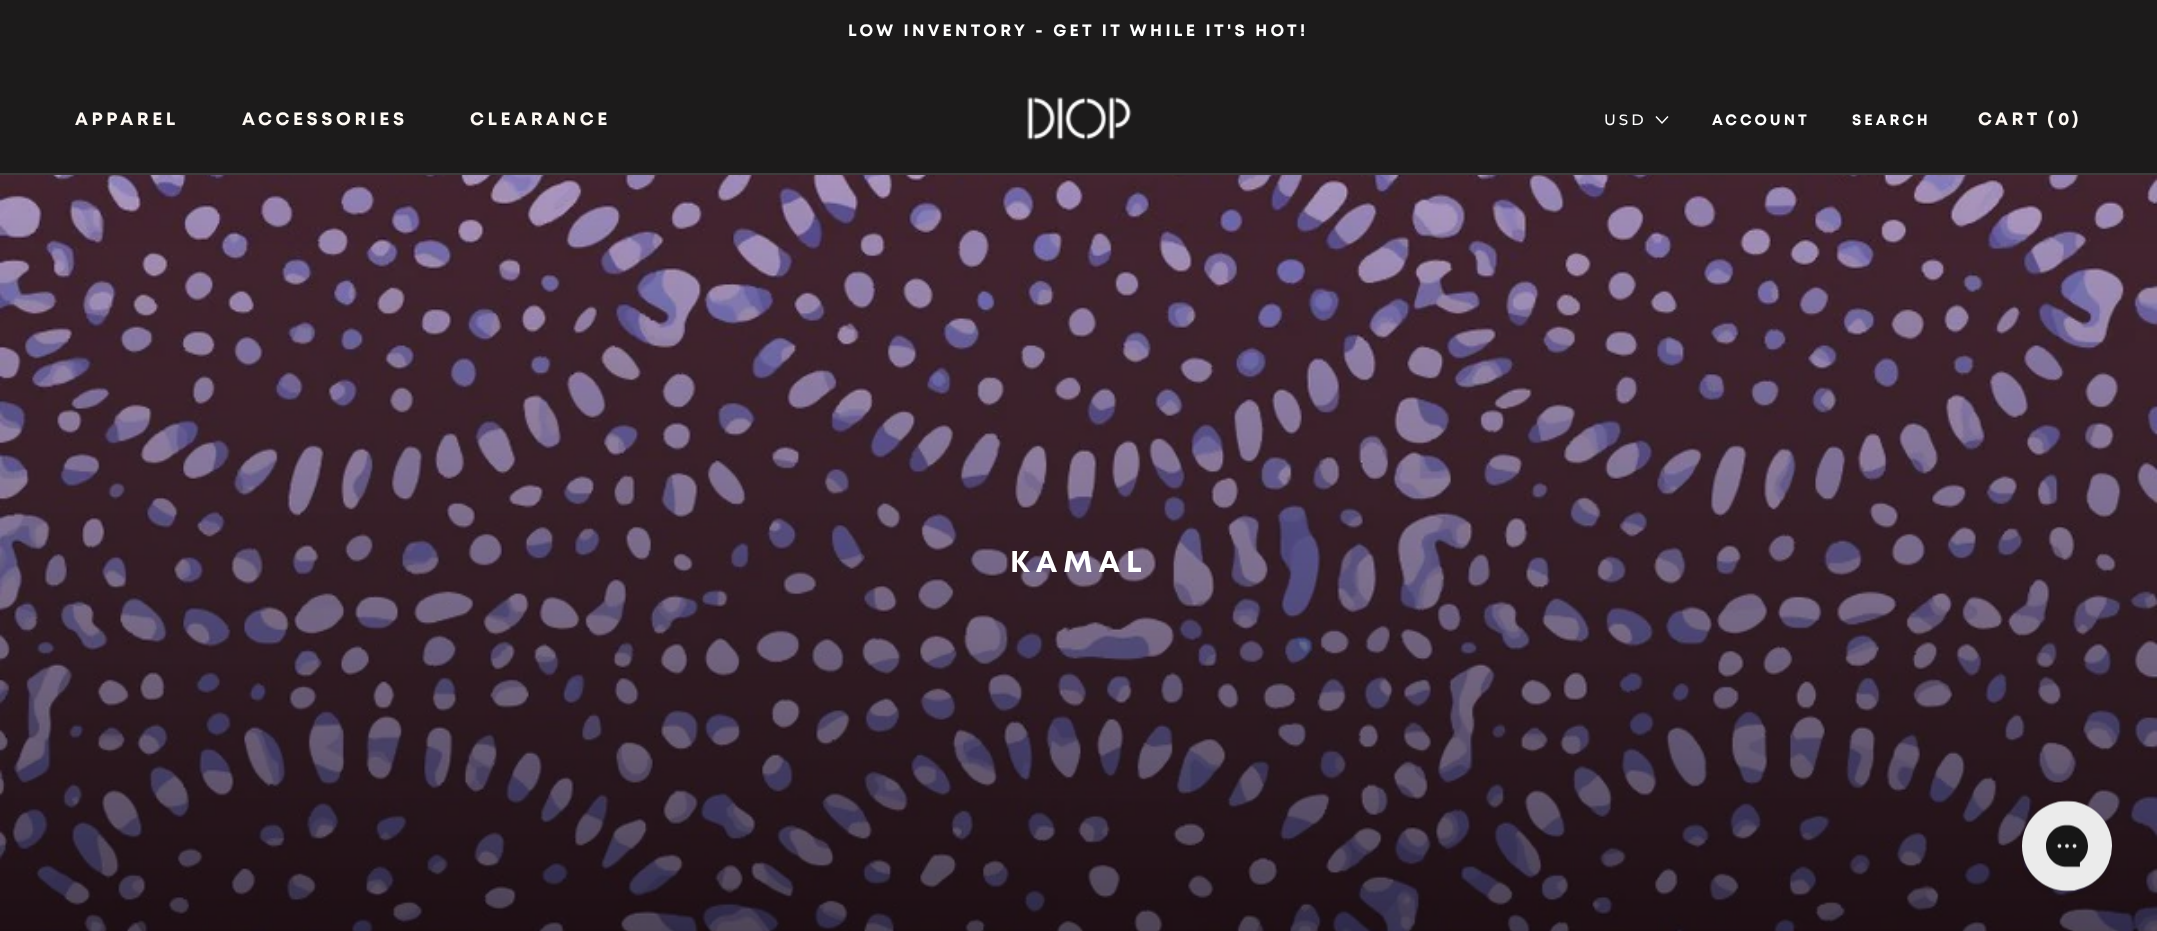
<!DOCTYPE html>
<meta charset="utf-8">
<style>body { margin: 0 } canvas { display: block }</style>
<canvas id="canvas" width="2157" height="931"></canvas>
<script type="module">
  const canvas = document.getElementById("canvas");
  const ctx = canvas.getContext("2d");
  ctx.miterLimit = 4;
  ctx.fontKerning = "normal";
  async function loadImage(src) {
    const img = new Image();
    img.src = src;
    await img.decode();
    return img;
  }

  ctx.fillStyle = "#1c1b1b";
  ctx.fillRect(0, 0, 2157, 931);
  ctx.letterSpacing = "3.3px";
  ctx.font = "bold 16.5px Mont";
  ctx.fillStyle = "#ffffff";
  ctx.fillText("LOW INVENTORY - GET IT WHILE IT'S HOT!", 848, 36);
  ctx.fillStyle = "#3e3c3c";
  ctx.fillRect(0, 173, 2157, 2);
  ctx.letterSpacing = "3.6px";
  ctx.font = "bold 18px Mont";
  ctx.fillStyle = "#fffaf4";
  ctx.fillText("APPAREL", 75, 125);
  ctx.fillText("ACCESSORIES", 242, 125);
  ctx.fillText("CLEARANCE", 470, 125);
  ctx.drawImage(await loadImage("img1.png"), 1027, 97, 105, 43);
  ctx.letterSpacing = "3px";
  ctx.font = "500 15px Montserrat";
  ctx.fillStyle = "#ffffff";
  ctx.fillText("USD", 1604, 125);
  ctx.beginPath();
  ctx.moveTo(1667.5, 117);
  ctx.lineTo(1662, 123);
  ctx.lineTo(1656.5, 117);
  ctx.strokeStyle = "#ffffff";
  ctx.lineWidth = 1.5;
  ctx.lineCap = "square";
  ctx.stroke();
  ctx.font = "bold 15px Mont";
  ctx.fillText("ACCOUNT", 1712, 125);
  ctx.fillText("SEARCH", 1852, 125);
  ctx.letterSpacing = "3.6px";
  ctx.wordSpacing = "-1px";
  ctx.font = "bold 18px Mont";
  ctx.fillStyle = "#fffaf4";
  ctx.fillText("CART (", 1978, 125);
  ctx.wordSpacing = "0px";
  ctx.fillText("0", 2058, 125);
  ctx.fillText(")", 2072, 125);
  ctx.drawImage(await loadImage("img2.png"), 0, 175, 2157, 756);
  ctx.letterSpacing = "6px";
  ctx.font = "bold 30px Mont";
  ctx.fillStyle = "#ffffff";
  ctx.fillText("KAMAL", 1010, 572);
  ctx.drawImage(await loadImage("img3.png"), 2022, 800, 90, 94);
</script>
